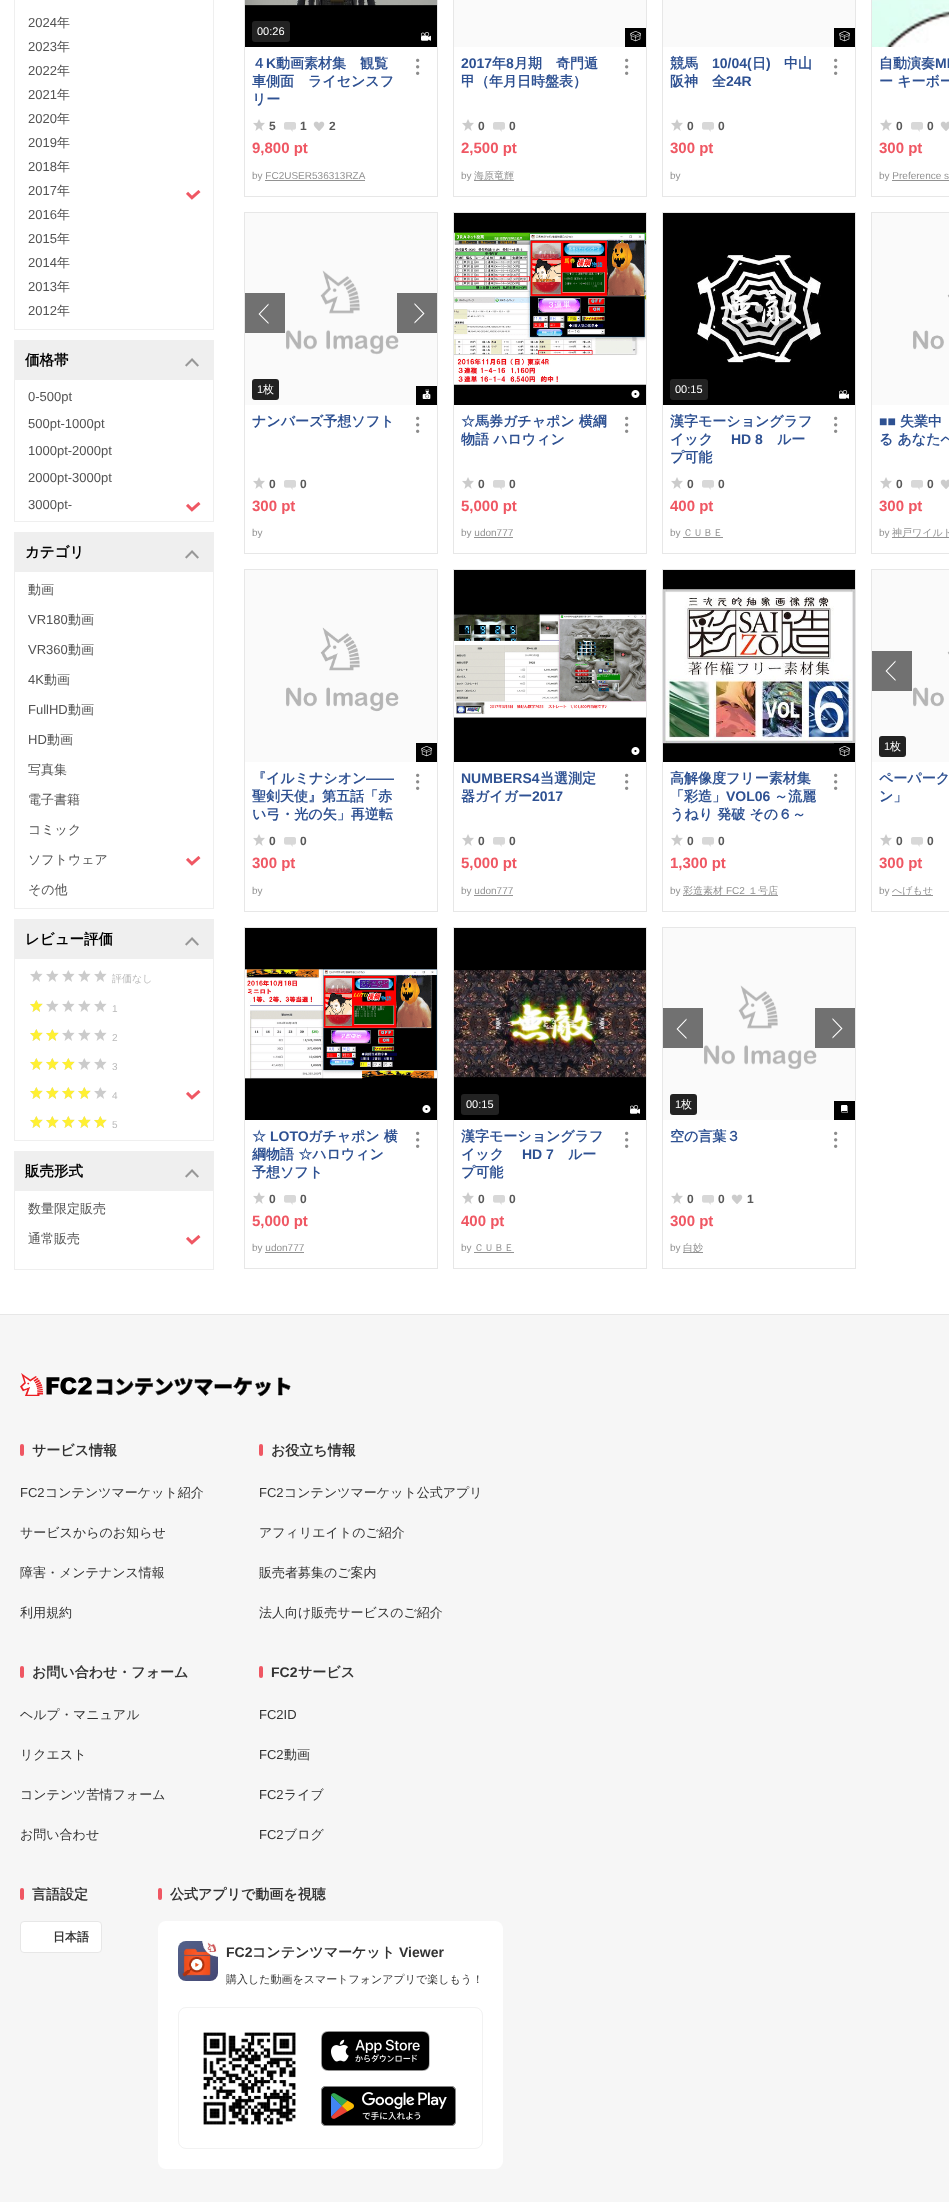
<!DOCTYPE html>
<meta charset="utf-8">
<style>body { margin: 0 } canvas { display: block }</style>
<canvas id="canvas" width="949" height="2202"></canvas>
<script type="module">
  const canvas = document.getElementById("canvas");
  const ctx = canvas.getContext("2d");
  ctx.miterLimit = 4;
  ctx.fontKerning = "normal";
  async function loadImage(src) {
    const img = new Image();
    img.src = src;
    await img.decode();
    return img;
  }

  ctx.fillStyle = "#ffffff";
  ctx.fillRect(0, 0, 949, 2202);
  ctx.strokeStyle = "#efefef";
  ctx.strokeRect(14.5, -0.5, 199, 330);
  ctx.font = "13px Liberation Sans";
  ctx.fillStyle = "#535353";
  ctx.fillText("2024", 28, 27);
  ctx.font = "500 13px WenQuanYi Zen Hei";
  ctx.fillText("年", 57, 27);
  ctx.font = "13px Liberation Sans";
  ctx.fillText("2023", 28, 51);
  ctx.font = "500 13px WenQuanYi Zen Hei";
  ctx.fillText("年", 57, 51);
  ctx.font = "13px Liberation Sans";
  ctx.fillText("2022", 28, 75);
  ctx.font = "500 13px WenQuanYi Zen Hei";
  ctx.fillText("年", 57, 75);
  ctx.font = "13px Liberation Sans";
  ctx.fillText("2021", 28, 99);
  ctx.font = "500 13px WenQuanYi Zen Hei";
  ctx.fillText("年", 57, 99);
  ctx.font = "13px Liberation Sans";
  ctx.fillText("2020", 28, 123);
  ctx.font = "500 13px WenQuanYi Zen Hei";
  ctx.fillText("年", 57, 123);
  ctx.font = "13px Liberation Sans";
  ctx.fillText("2019", 28, 147);
  ctx.font = "500 13px WenQuanYi Zen Hei";
  ctx.fillText("年", 57, 147);
  ctx.font = "13px Liberation Sans";
  ctx.fillText("2018", 28, 171);
  ctx.font = "500 13px WenQuanYi Zen Hei";
  ctx.fillText("年", 57, 171);
  ctx.font = "13px Liberation Sans";
  ctx.fillText("2017", 28, 195);
  ctx.font = "500 13px WenQuanYi Zen Hei";
  ctx.fillText("年", 57, 195);
  ctx.drawImage(await loadImage("img1.png"), 186, 190, 15, 10);
  ctx.font = "13px Liberation Sans";
  ctx.fillText("2016", 28, 219);
  ctx.font = "500 13px WenQuanYi Zen Hei";
  ctx.fillText("年", 57, 219);
  ctx.font = "13px Liberation Sans";
  ctx.fillText("2015", 28, 243);
  ctx.font = "500 13px WenQuanYi Zen Hei";
  ctx.fillText("年", 57, 243);
  ctx.font = "13px Liberation Sans";
  ctx.fillText("2014", 28, 267);
  ctx.font = "500 13px WenQuanYi Zen Hei";
  ctx.fillText("年", 57, 267);
  ctx.font = "13px Liberation Sans";
  ctx.fillText("2013", 28, 291);
  ctx.font = "500 13px WenQuanYi Zen Hei";
  ctx.fillText("年", 57, 291);
  ctx.font = "13px Liberation Sans";
  ctx.fillText("2012", 28, 315);
  ctx.font = "500 13px WenQuanYi Zen Hei";
  ctx.fillText("年", 57, 315);
  ctx.strokeRect(14.5, 340.5, 199, 181);
  ctx.fillStyle = "#efefef";
  ctx.fillRect(15, 341, 198, 39);
  ctx.font = "bold 14.5px WenQuanYi Zen Hei";
  ctx.fillStyle = "#000000";
  ctx.fillText("価格帯", 25, 365);
  ctx.drawImage(await loadImage("img2.png"), 185, 358, 14, 9);
  ctx.font = "13px Liberation Sans";
  ctx.fillStyle = "#535353";
  ctx.fillText("0-500pt", 28, 401);
  ctx.fillText("500pt-1000pt", 28, 428);
  ctx.fillText("1000pt-2000pt", 28, 455);
  ctx.fillText("2000pt-3000pt", 28, 482);
  ctx.fillText("3000pt-", 28, 509);
  ctx.drawImage(await loadImage("img1.png"), 186, 502, 15, 10);
  ctx.strokeRect(14.5, 532.5, 199, 376);
  ctx.fillStyle = "#efefef";
  ctx.fillRect(15, 533, 198, 39);
  ctx.font = "bold 14.5px WenQuanYi Zen Hei";
  ctx.fillStyle = "#000000";
  ctx.fillText("カテゴリ", 25, 557);
  ctx.drawImage(await loadImage("img2.png"), 185, 550, 14, 9);
  ctx.font = "500 13px WenQuanYi Zen Hei";
  ctx.fillStyle = "#535353";
  ctx.fillText("動画", 28, 594);
  ctx.font = "13px Liberation Sans";
  ctx.fillText("VR180", 28, 624);
  ctx.font = "500 13px WenQuanYi Zen Hei";
  ctx.fillText("動画", 68, 624);
  ctx.font = "13px Liberation Sans";
  ctx.fillText("VR360", 28, 654);
  ctx.font = "500 13px WenQuanYi Zen Hei";
  ctx.fillText("動画", 68, 654);
  ctx.font = "13px Liberation Sans";
  ctx.fillText("4K", 28, 684);
  ctx.font = "500 13px WenQuanYi Zen Hei";
  ctx.fillText("動画", 44, 684);
  ctx.font = "13px Liberation Sans";
  ctx.fillText("FullHD", 28, 714);
  ctx.font = "500 13px WenQuanYi Zen Hei";
  ctx.fillText("動画", 68, 714);
  ctx.font = "13px Liberation Sans";
  ctx.fillText("HD", 28, 744);
  ctx.font = "500 13px WenQuanYi Zen Hei";
  ctx.fillText("動画", 47, 744);
  ctx.fillText("写真集", 28, 774);
  ctx.fillText("電子書籍", 28, 804);
  ctx.fillText("コミック", 28, 834);
  ctx.fillText("ソフトウェア", 28, 864);
  ctx.drawImage(await loadImage("img1.png"), 186, 856, 15, 10);
  ctx.fillText("その他", 28, 894);
  ctx.strokeRect(14.5, 919.5, 199, 221);
  ctx.fillStyle = "#efefef";
  ctx.fillRect(15, 920, 198, 39);
  ctx.font = "bold 14.5px WenQuanYi Zen Hei";
  ctx.fillStyle = "#000000";
  ctx.fillText("レビュー評価", 25, 944);
  ctx.drawImage(await loadImage("img2.png"), 185, 937, 14, 9);
  ctx.drawImage(await loadImage("img3.png"), 30, 970, 77, 12);
  ctx.font = "500 10px WenQuanYi Zen Hei";
  ctx.fillStyle = "#bababa";
  ctx.fillText("評価なし", 112, 982);
  ctx.drawImage(await loadImage("img3.png"), 30, 1000, 77, 12);
  ctx.drawImage(await loadImage("img4.png"), 30, 1000, 13, 12);
  ctx.font = "10px Liberation Sans";
  ctx.fillText("1", 112, 1012);
  ctx.drawImage(await loadImage("img3.png"), 30, 1029, 77, 12);
  ctx.drawImage(await loadImage("img4.png"), 30, 1029, 13, 12);
  ctx.drawImage(await loadImage("img4.png"), 46, 1029, 13, 12);
  ctx.fillText("2", 112, 1041);
  ctx.drawImage(await loadImage("img3.png"), 30, 1058, 77, 12);
  ctx.drawImage(await loadImage("img4.png"), 30, 1058, 13, 12);
  ctx.drawImage(await loadImage("img4.png"), 46, 1058, 13, 12);
  ctx.drawImage(await loadImage("img4.png"), 62, 1058, 13, 12);
  ctx.fillText("3", 112, 1070);
  ctx.drawImage(await loadImage("img3.png"), 30, 1087, 77, 12);
  ctx.drawImage(await loadImage("img4.png"), 30, 1087, 13, 12);
  ctx.drawImage(await loadImage("img4.png"), 46, 1087, 13, 12);
  ctx.drawImage(await loadImage("img4.png"), 62, 1087, 13, 12);
  ctx.drawImage(await loadImage("img4.png"), 78, 1087, 13, 12);
  ctx.fillText("4", 112, 1099);
  ctx.drawImage(await loadImage("img1.png"), 186, 1090, 15, 10);
  ctx.drawImage(await loadImage("img3.png"), 30, 1116, 77, 12);
  ctx.drawImage(await loadImage("img4.png"), 30, 1116, 13, 12);
  ctx.drawImage(await loadImage("img4.png"), 46, 1116, 13, 12);
  ctx.drawImage(await loadImage("img4.png"), 62, 1116, 13, 12);
  ctx.drawImage(await loadImage("img4.png"), 78, 1116, 13, 12);
  ctx.drawImage(await loadImage("img4.png"), 94, 1116, 13, 12);
  ctx.fillText("5", 112, 1128);
  ctx.strokeRect(14.5, 1151.5, 199, 118);
  ctx.fillStyle = "#efefef";
  ctx.fillRect(15, 1152, 198, 39);
  ctx.font = "bold 14.5px WenQuanYi Zen Hei";
  ctx.fillStyle = "#000000";
  ctx.fillText("販売形式", 25, 1176);
  ctx.drawImage(await loadImage("img2.png"), 185, 1169, 14, 9);
  ctx.font = "500 13px WenQuanYi Zen Hei";
  ctx.fillStyle = "#535353";
  ctx.fillText("数量限定販売", 28, 1213);
  ctx.fillText("通常販売", 28, 1243);
  ctx.drawImage(await loadImage("img1.png"), 186, 1235, 15, 10);
  ctx.strokeStyle = "#e7e7e7";
  ctx.strokeRect(244.5, -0.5, 193, 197);
  ctx.fillStyle = "#000000";
  ctx.fillRect(245, 5, 192, 42);
  ctx.drawImage(await loadImage("img5.png"), 245, 0, 192, 6);
  ctx.fillStyle = "#222222";
  ctx.beginPath();
  ctx.roundRect(252, 21, 38, 21, 3);
  ctx.fill();
  ctx.font = "11px Liberation Sans";
  ctx.fillStyle = "#ffffff";
  ctx.fillText("00:26", 257, 35);
  ctx.drawImage(await loadImage("img6.png"), 421, 32, 10, 9);
  ctx.font = "bold 14px WenQuanYi Zen Hei";
  ctx.fillStyle = "#2e5192";
  ctx.fillText("４", 252, 68);
  ctx.font = "bold 14px Liberation Sans";
  ctx.fillText("K", 266, 68);
  ctx.font = "bold 14px WenQuanYi Zen Hei";
  ctx.fillText("動画素材集　観覧", 276, 68);
  ctx.fillText("車側面　ライセンスフ", 252, 86);
  ctx.fillText("リー", 252, 104);
  ctx.drawImage(await loadImage("img7.png"), 416, 58, 4, 17);
  ctx.drawImage(await loadImage("img8.png"), 253, 119, 12, 12);
  ctx.font = "bold 12px Liberation Sans";
  ctx.fillStyle = "#595959";
  ctx.fillText("5", 269, 130);
  ctx.drawImage(await loadImage("img9.png"), 284, 122, 12, 10);
  ctx.fillText("1", 300, 130);
  ctx.drawImage(await loadImage("img10.png"), 313, 121, 12, 10);
  ctx.fillText("2", 329, 130);
  ctx.font = "bold 15px Liberation Sans";
  ctx.fillStyle = "#ef5763";
  ctx.fillText("9,800 pt", 252, 153);
  ctx.font = "10px Liberation Sans";
  ctx.fillStyle = "#929292";
  ctx.fillText("by FC2USER536313RZA", 252, 179);
  ctx.fillRect(265, 180, 100, 1);
  ctx.strokeRect(453.5, -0.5, 193, 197);
  ctx.fillStyle = "#fafafa";
  ctx.fillRect(454, 0, 192, 47);
  ctx.fillStyle = "#000000";
  ctx.fillRect(625, 28, 21, 19);
  ctx.drawImage(await loadImage("img11.png"), 630, 31, 11, 11);
  ctx.font = "bold 14px Liberation Sans";
  ctx.fillStyle = "#2e5192";
  ctx.fillText("2017", 461, 68);
  ctx.font = "bold 14px WenQuanYi Zen Hei";
  ctx.fillText("年", 492, 68);
  ctx.font = "bold 14px Liberation Sans";
  ctx.fillText("8", 506, 68);
  ctx.font = "bold 14px WenQuanYi Zen Hei";
  ctx.fillText("月期　奇門遁", 514, 68);
  ctx.fillText("甲（年月日時盤表）", 461, 86);
  ctx.drawImage(await loadImage("img7.png"), 625, 58, 4, 17);
  ctx.drawImage(await loadImage("img8.png"), 462, 119, 12, 12);
  ctx.font = "bold 12px Liberation Sans";
  ctx.fillStyle = "#595959";
  ctx.fillText("0", 478, 130);
  ctx.drawImage(await loadImage("img9.png"), 493, 122, 12, 10);
  ctx.fillText("0", 509, 130);
  ctx.font = "bold 15px Liberation Sans";
  ctx.fillStyle = "#ef5763";
  ctx.fillText("2,500 pt", 461, 153);
  ctx.font = "10px Liberation Sans";
  ctx.fillStyle = "#929292";
  ctx.fillText("by", 461, 179);
  ctx.fillRect(474, 180, 40, 1);
  ctx.font = "500 10px WenQuanYi Zen Hei";
  ctx.fillText("海原竜輝", 474, 179);
  ctx.strokeRect(662.5, -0.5, 193, 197);
  ctx.fillStyle = "#fafafa";
  ctx.fillRect(663, 0, 192, 47);
  ctx.fillStyle = "#000000";
  ctx.fillRect(834, 28, 21, 19);
  ctx.drawImage(await loadImage("img11.png"), 839, 31, 11, 11);
  ctx.font = "bold 14px WenQuanYi Zen Hei";
  ctx.fillStyle = "#2e5192";
  ctx.fillText("競馬", 670, 68);
  ctx.font = "bold 14px Liberation Sans";
  ctx.fillText("10/04(", 712, 68);
  ctx.font = "bold 14px WenQuanYi Zen Hei";
  ctx.fillText("日", 752, 68);
  ctx.font = "bold 14px Liberation Sans";
  ctx.fillText(")", 766, 68);
  ctx.font = "bold 14px WenQuanYi Zen Hei";
  ctx.fillText("中山", 784, 68);
  ctx.fillText("阪神　全", 670, 86);
  ctx.font = "bold 14px Liberation Sans";
  ctx.fillText("24R", 726, 86);
  ctx.drawImage(await loadImage("img7.png"), 834, 58, 4, 17);
  ctx.drawImage(await loadImage("img8.png"), 671, 119, 12, 12);
  ctx.font = "bold 12px Liberation Sans";
  ctx.fillStyle = "#595959";
  ctx.fillText("0", 687, 130);
  ctx.drawImage(await loadImage("img9.png"), 702, 122, 12, 10);
  ctx.fillText("0", 718, 130);
  ctx.font = "bold 15px Liberation Sans";
  ctx.fillStyle = "#ef5763";
  ctx.fillText("300 pt", 670, 153);
  ctx.font = "10px Liberation Sans";
  ctx.fillStyle = "#929292";
  ctx.fillText("by", 670, 179);
  ctx.strokeRect(871.5, -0.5, 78, 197);
  ctx.drawImage(await loadImage("img12.png"), 872, 0, 77, 47);
  ctx.font = "bold 14px WenQuanYi Zen Hei";
  ctx.fillStyle = "#2e5192";
  ctx.fillText("自動演奏", 879, 68);
  ctx.font = "bold 14px Liberation Sans";
  ctx.fillText("MI", 935, 68);
  ctx.font = "bold 14px WenQuanYi Zen Hei";
  ctx.fillText("ー キーボー", 879, 86);
  ctx.drawImage(await loadImage("img8.png"), 880, 119, 12, 12);
  ctx.font = "bold 12px Liberation Sans";
  ctx.fillStyle = "#595959";
  ctx.fillText("0", 896, 130);
  ctx.drawImage(await loadImage("img9.png"), 911, 122, 12, 10);
  ctx.fillText("0", 927, 130);
  ctx.drawImage(await loadImage("img13.png"), 940, 121, 9, 10);
  ctx.font = "bold 15px Liberation Sans";
  ctx.fillStyle = "#ef5763";
  ctx.fillText("300 pt", 879, 153);
  ctx.font = "10px Liberation Sans";
  ctx.fillStyle = "#929292";
  ctx.fillText("by Preference s", 879, 179);
  ctx.fillRect(892, 180, 57, 1);
  ctx.strokeRect(244.5, 212.5, 193, 341);
  ctx.drawImage(await loadImage("img14.png"), 245, 213, 192, 192);
  ctx.fillStyle = "#717171";
  ctx.fillRect(245, 293, 40, 40);
  ctx.fillStyle = "#ffffff";
  ctx.beginPath();
  ctx.moveTo(260, 314);
  ctx.lineTo(268.5, 305);
  ctx.lineTo(268.5, 303.5);
  ctx.lineTo(258.5, 314);
  ctx.lineTo(268.5, 324);
  ctx.lineTo(268.5, 322.5);
  ctx.closePath();
  ctx.fill();
  ctx.fillStyle = "#717171";
  ctx.fillRect(397, 293, 40, 40);
  ctx.fillStyle = "#ffffff";
  ctx.beginPath();
  ctx.moveTo(423, 313.5);
  ctx.lineTo(414.5, 322);
  ctx.lineTo(414.5, 323.5);
  ctx.lineTo(424.5, 313.5);
  ctx.lineTo(414.5, 303);
  ctx.lineTo(414.5, 304.5);
  ctx.closePath();
  ctx.fill();
  ctx.fillStyle = "#222222";
  ctx.beginPath();
  ctx.roundRect(252, 379, 27, 21, 3);
  ctx.fill();
  ctx.font = "11px Liberation Sans";
  ctx.fillStyle = "#ffffff";
  ctx.fillText("1", 257, 393);
  ctx.font = "500 11px WenQuanYi Zen Hei";
  ctx.fillText("枚", 263, 393);
  ctx.fillStyle = "#000000";
  ctx.fillRect(416, 386, 21, 19);
  ctx.drawImage(await loadImage("img15.png"), 422, 389, 9, 10);
  ctx.font = "bold 14px WenQuanYi Zen Hei";
  ctx.fillStyle = "#2e5192";
  ctx.fillText("ナンバーズ予想ソフト", 252, 426);
  ctx.drawImage(await loadImage("img7.png"), 416, 416, 4, 17);
  ctx.drawImage(await loadImage("img8.png"), 253, 477, 12, 12);
  ctx.font = "bold 12px Liberation Sans";
  ctx.fillStyle = "#595959";
  ctx.fillText("0", 269, 488);
  ctx.drawImage(await loadImage("img9.png"), 284, 480, 12, 10);
  ctx.fillText("0", 300, 488);
  ctx.font = "bold 15px Liberation Sans";
  ctx.fillStyle = "#ef5763";
  ctx.fillText("300 pt", 252, 511);
  ctx.font = "10px Liberation Sans";
  ctx.fillStyle = "#929292";
  ctx.fillText("by", 252, 536);
  ctx.strokeRect(453.5, 212.5, 193, 341);
  ctx.fillStyle = "#000000";
  ctx.fillRect(454, 213, 192, 192);
  ctx.drawImage(await loadImage("img16.png"), 454, 232, 192, 153);
  ctx.drawImage(await loadImage("img17.png"), 631, 390, 9, 8);
  ctx.font = "bold 14px WenQuanYi Zen Hei";
  ctx.fillStyle = "#2e5192";
  ctx.fillText("☆馬券ガチャポン 横綱", 461, 426);
  ctx.fillText("物語 ハロウィン", 461, 444);
  ctx.drawImage(await loadImage("img7.png"), 625, 416, 4, 17);
  ctx.drawImage(await loadImage("img8.png"), 462, 477, 12, 12);
  ctx.font = "bold 12px Liberation Sans";
  ctx.fillStyle = "#595959";
  ctx.fillText("0", 478, 488);
  ctx.drawImage(await loadImage("img9.png"), 493, 480, 12, 10);
  ctx.fillText("0", 509, 488);
  ctx.font = "bold 15px Liberation Sans";
  ctx.fillStyle = "#ef5763";
  ctx.fillText("5,000 pt", 461, 511);
  ctx.font = "10px Liberation Sans";
  ctx.fillStyle = "#929292";
  ctx.fillText("by udon777", 461, 536);
  ctx.fillRect(474, 537, 39, 1);
  ctx.strokeRect(662.5, 212.5, 193, 341);
  ctx.fillStyle = "#000000";
  ctx.fillRect(663, 213, 192, 192);
  ctx.drawImage(await loadImage("img18.png"), 697, 255, 124, 108);
  ctx.fillStyle = "#222222";
  ctx.beginPath();
  ctx.roundRect(670, 379, 38, 21, 3);
  ctx.fill();
  ctx.font = "11px Liberation Sans";
  ctx.fillStyle = "#ffffff";
  ctx.fillText("00:15", 675, 393);
  ctx.drawImage(await loadImage("img6.png"), 839, 390, 10, 9);
  ctx.font = "bold 14px WenQuanYi Zen Hei";
  ctx.fillStyle = "#2e5192";
  ctx.fillText("漢字モーショングラフ", 670, 426);
  ctx.fillText("イック", 670, 444);
  ctx.font = "bold 14px Liberation Sans";
  ctx.fillText("HD 8", 731, 444);
  ctx.font = "bold 14px WenQuanYi Zen Hei";
  ctx.fillText("ルー", 777, 444);
  ctx.fillText("プ可能", 670, 462);
  ctx.drawImage(await loadImage("img7.png"), 834, 416, 4, 17);
  ctx.drawImage(await loadImage("img8.png"), 671, 477, 12, 12);
  ctx.font = "bold 12px Liberation Sans";
  ctx.fillStyle = "#595959";
  ctx.fillText("0", 687, 488);
  ctx.drawImage(await loadImage("img9.png"), 702, 480, 12, 10);
  ctx.fillText("0", 718, 488);
  ctx.font = "bold 15px Liberation Sans";
  ctx.fillStyle = "#ef5763";
  ctx.fillText("400 pt", 670, 511);
  ctx.font = "10px Liberation Sans";
  ctx.fillStyle = "#929292";
  ctx.fillText("by", 670, 536);
  ctx.font = "500 10px WenQuanYi Zen Hei";
  ctx.fillText("ＣＵＢＥ", 683, 536);
  ctx.fillRect(683, 537, 40, 1);
  ctx.strokeRect(871.5, 212.5, 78, 341);
  ctx.drawImage(await loadImage("img19.png"), 872, 213, 77, 192);
  ctx.font = "bold 14px Liberation Sans";
  ctx.fillStyle = "#2e5192";
  ctx.fillText("■■", 879, 426);
  ctx.font = "bold 14px WenQuanYi Zen Hei";
  ctx.fillText("失業中", 900, 426);
  ctx.fillText("る あなたへ", 879, 444);
  ctx.drawImage(await loadImage("img8.png"), 880, 477, 12, 12);
  ctx.font = "bold 12px Liberation Sans";
  ctx.fillStyle = "#595959";
  ctx.fillText("0", 896, 488);
  ctx.drawImage(await loadImage("img9.png"), 911, 480, 12, 10);
  ctx.fillText("0", 927, 488);
  ctx.drawImage(await loadImage("img13.png"), 940, 479, 9, 10);
  ctx.font = "bold 15px Liberation Sans";
  ctx.fillStyle = "#ef5763";
  ctx.fillText("300 pt", 879, 511);
  ctx.font = "10px Liberation Sans";
  ctx.fillStyle = "#929292";
  ctx.fillText("by", 879, 536);
  ctx.fillRect(892, 537, 57, 1);
  ctx.font = "500 10px WenQuanYi Zen Hei";
  ctx.fillText("神戸ワイルド", 892, 536);
  ctx.strokeRect(244.5, 569.5, 193, 342);
  ctx.drawImage(await loadImage("img20.png"), 245, 570, 192, 192);
  ctx.fillStyle = "#000000";
  ctx.fillRect(416, 743, 21, 19);
  ctx.drawImage(await loadImage("img11.png"), 421, 746, 11, 11);
  ctx.font = "bold 14px WenQuanYi Zen Hei";
  ctx.fillStyle = "#2e5192";
  ctx.fillText("『イルミナシオン", 252, 783);
  ctx.font = "bold 14px Liberation Sans";
  ctx.fillText("——", 366, 783);
  ctx.font = "bold 14px WenQuanYi Zen Hei";
  ctx.fillText("聖剣天使』第五話「赤", 252, 801);
  ctx.fillText("い弓・光の矢」再逆転", 252, 819);
  ctx.drawImage(await loadImage("img7.png"), 416, 773, 4, 17);
  ctx.drawImage(await loadImage("img8.png"), 253, 834, 12, 12);
  ctx.font = "bold 12px Liberation Sans";
  ctx.fillStyle = "#595959";
  ctx.fillText("0", 269, 845);
  ctx.drawImage(await loadImage("img9.png"), 284, 837, 12, 10);
  ctx.fillText("0", 300, 845);
  ctx.font = "bold 15px Liberation Sans";
  ctx.fillStyle = "#ef5763";
  ctx.fillText("300 pt", 252, 868);
  ctx.font = "10px Liberation Sans";
  ctx.fillStyle = "#929292";
  ctx.fillText("by", 252, 894);
  ctx.strokeRect(453.5, 569.5, 193, 342);
  ctx.fillStyle = "#000000";
  ctx.fillRect(454, 570, 192, 192);
  ctx.drawImage(await loadImage("img21.png"), 454, 614, 192, 104);
  ctx.drawImage(await loadImage("img17.png"), 631, 747, 9, 8);
  ctx.font = "bold 14px Liberation Sans";
  ctx.fillStyle = "#2e5192";
  ctx.fillText("NUMBERS4", 461, 783);
  ctx.font = "bold 14px WenQuanYi Zen Hei";
  ctx.fillText("当選測定", 540, 783);
  ctx.fillText("器ガイガー", 461, 801);
  ctx.font = "bold 14px Liberation Sans";
  ctx.fillText("2017", 532, 801);
  ctx.drawImage(await loadImage("img7.png"), 625, 773, 4, 17);
  ctx.drawImage(await loadImage("img8.png"), 462, 834, 12, 12);
  ctx.font = "bold 12px Liberation Sans";
  ctx.fillStyle = "#595959";
  ctx.fillText("0", 478, 845);
  ctx.drawImage(await loadImage("img9.png"), 493, 837, 12, 10);
  ctx.fillText("0", 509, 845);
  ctx.font = "bold 15px Liberation Sans";
  ctx.fillStyle = "#ef5763";
  ctx.fillText("5,000 pt", 461, 868);
  ctx.font = "10px Liberation Sans";
  ctx.fillStyle = "#929292";
  ctx.fillText("by udon777", 461, 894);
  ctx.fillRect(474, 895, 39, 1);
  ctx.strokeRect(662.5, 569.5, 193, 342);
  ctx.fillStyle = "#000000";
  ctx.fillRect(663, 570, 192, 192);
  ctx.drawImage(await loadImage("img22.png"), 663, 589, 192, 155);
  ctx.fillRect(834, 743, 21, 1);
  ctx.drawImage(await loadImage("img11.png"), 839, 746, 11, 11);
  ctx.font = "bold 14px WenQuanYi Zen Hei";
  ctx.fillStyle = "#2e5192";
  ctx.fillText("高解像度フリー素材集", 670, 783);
  ctx.fillText("「彩造」", 670, 801);
  ctx.font = "bold 14px Liberation Sans";
  ctx.fillText("VOL06", 726, 801);
  ctx.font = "bold 14px WenQuanYi Zen Hei";
  ctx.fillText("～流麗", 774, 801);
  ctx.fillText("うねり 発破 その６～", 670, 819);
  ctx.drawImage(await loadImage("img7.png"), 834, 773, 4, 17);
  ctx.drawImage(await loadImage("img8.png"), 671, 834, 12, 12);
  ctx.font = "bold 12px Liberation Sans";
  ctx.fillStyle = "#595959";
  ctx.fillText("0", 687, 845);
  ctx.drawImage(await loadImage("img9.png"), 702, 837, 12, 10);
  ctx.fillText("0", 718, 845);
  ctx.font = "bold 15px Liberation Sans";
  ctx.fillStyle = "#ef5763";
  ctx.fillText("1,300 pt", 670, 868);
  ctx.font = "10px Liberation Sans";
  ctx.fillStyle = "#929292";
  ctx.fillText("by", 670, 894);
  ctx.fillRect(683, 895, 95, 1);
  ctx.font = "500 10px WenQuanYi Zen Hei";
  ctx.fillText("彩造素材", 683, 894);
  ctx.font = "10px Liberation Sans";
  ctx.fillText("FC2", 726, 894);
  ctx.font = "500 10px WenQuanYi Zen Hei";
  ctx.fillText("１号店", 748, 894);
  ctx.strokeRect(871.5, 569.5, 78, 342);
  ctx.drawImage(await loadImage("img19.png"), 872, 570, 77, 192);
  ctx.fillStyle = "#717171";
  ctx.fillRect(872, 651, 40, 40);
  ctx.fillStyle = "#ffffff";
  ctx.beginPath();
  ctx.moveTo(887, 671);
  ctx.lineTo(895.5, 662);
  ctx.lineTo(895.5, 660.5);
  ctx.lineTo(885.5, 671);
  ctx.lineTo(895.5, 681);
  ctx.lineTo(895.5, 679.5);
  ctx.closePath();
  ctx.fill();
  ctx.fillStyle = "#222222";
  ctx.beginPath();
  ctx.roundRect(879, 736, 27, 21, 3);
  ctx.fill();
  ctx.font = "11px Liberation Sans";
  ctx.fillStyle = "#ffffff";
  ctx.fillText("1", 884, 750);
  ctx.font = "500 11px WenQuanYi Zen Hei";
  ctx.fillText("枚", 890, 750);
  ctx.font = "bold 14px WenQuanYi Zen Hei";
  ctx.fillStyle = "#2e5192";
  ctx.fillText("ペーパーク", 879, 783);
  ctx.fillText("ン」", 879, 801);
  ctx.drawImage(await loadImage("img8.png"), 880, 834, 12, 12);
  ctx.font = "bold 12px Liberation Sans";
  ctx.fillStyle = "#595959";
  ctx.fillText("0", 896, 845);
  ctx.drawImage(await loadImage("img9.png"), 911, 837, 12, 10);
  ctx.fillText("0", 927, 845);
  ctx.font = "bold 15px Liberation Sans";
  ctx.fillStyle = "#ef5763";
  ctx.fillText("300 pt", 879, 868);
  ctx.font = "10px Liberation Sans";
  ctx.fillStyle = "#929292";
  ctx.fillText("by", 879, 894);
  ctx.fillRect(892, 895, 41, 1);
  ctx.font = "500 10px WenQuanYi Zen Hei";
  ctx.fillText("へげもせ", 892, 894);
  ctx.strokeRect(244.5, 927.5, 193, 341);
  ctx.fillStyle = "#000000";
  ctx.fillRect(245, 928, 192, 192);
  ctx.drawImage(await loadImage("img23.png"), 245, 969, 192, 110);
  ctx.drawImage(await loadImage("img17.png"), 422, 1105, 9, 8);
  ctx.font = "bold 14px WenQuanYi Zen Hei";
  ctx.fillStyle = "#2e5192";
  ctx.fillText("☆", 252, 1141);
  ctx.font = "bold 14px Liberation Sans";
  ctx.fillText("LOTO", 270, 1141);
  ctx.font = "bold 14px WenQuanYi Zen Hei";
  ctx.fillText("ガチャポン 横", 308, 1141);
  ctx.fillText("綱物語 ☆ハロウィン", 252, 1159);
  ctx.fillText("予想ソフト", 252, 1177);
  ctx.drawImage(await loadImage("img7.png"), 416, 1131, 4, 17);
  ctx.drawImage(await loadImage("img8.png"), 253, 1192, 12, 12);
  ctx.font = "bold 12px Liberation Sans";
  ctx.fillStyle = "#595959";
  ctx.fillText("0", 269, 1203);
  ctx.drawImage(await loadImage("img9.png"), 284, 1195, 12, 10);
  ctx.fillText("0", 300, 1203);
  ctx.font = "bold 15px Liberation Sans";
  ctx.fillStyle = "#ef5763";
  ctx.fillText("5,000 pt", 252, 1226);
  ctx.font = "10px Liberation Sans";
  ctx.fillStyle = "#929292";
  ctx.fillText("by udon777", 252, 1251);
  ctx.fillRect(265, 1252, 39, 1);
  ctx.strokeRect(453.5, 927.5, 193, 341);
  ctx.fillStyle = "#000000";
  ctx.fillRect(454, 928, 192, 192);
  ctx.drawImage(await loadImage("img24.png"), 454, 970, 192, 108);
  ctx.fillStyle = "#222222";
  ctx.beginPath();
  ctx.roundRect(461, 1094, 38, 21, 3);
  ctx.fill();
  ctx.font = "11px Liberation Sans";
  ctx.fillStyle = "#ffffff";
  ctx.fillText("00:15", 466, 1108);
  ctx.drawImage(await loadImage("img6.png"), 630, 1105, 10, 9);
  ctx.font = "bold 14px WenQuanYi Zen Hei";
  ctx.fillStyle = "#2e5192";
  ctx.fillText("漢字モーショングラフ", 461, 1141);
  ctx.fillText("イック", 461, 1159);
  ctx.font = "bold 14px Liberation Sans";
  ctx.fillText("HD 7", 522, 1159);
  ctx.font = "bold 14px WenQuanYi Zen Hei";
  ctx.fillText("ルー", 568, 1159);
  ctx.fillText("プ可能", 461, 1177);
  ctx.drawImage(await loadImage("img7.png"), 625, 1131, 4, 17);
  ctx.drawImage(await loadImage("img8.png"), 462, 1192, 12, 12);
  ctx.font = "bold 12px Liberation Sans";
  ctx.fillStyle = "#595959";
  ctx.fillText("0", 478, 1203);
  ctx.drawImage(await loadImage("img9.png"), 493, 1195, 12, 10);
  ctx.fillText("0", 509, 1203);
  ctx.font = "bold 15px Liberation Sans";
  ctx.fillStyle = "#ef5763";
  ctx.fillText("400 pt", 461, 1226);
  ctx.font = "10px Liberation Sans";
  ctx.fillStyle = "#929292";
  ctx.fillText("by", 461, 1251);
  ctx.font = "500 10px WenQuanYi Zen Hei";
  ctx.fillText("ＣＵＢＥ", 474, 1251);
  ctx.fillRect(474, 1252, 40, 1);
  ctx.strokeRect(662.5, 927.5, 193, 341);
  ctx.drawImage(await loadImage("img14.png"), 663, 928, 192, 192);
  ctx.fillStyle = "#717171";
  ctx.fillRect(663, 1008, 40, 40);
  ctx.fillStyle = "#ffffff";
  ctx.beginPath();
  ctx.moveTo(678, 1029);
  ctx.lineTo(686.5, 1020);
  ctx.lineTo(686.5, 1018.5);
  ctx.lineTo(676.5, 1029);
  ctx.lineTo(686.5, 1039);
  ctx.lineTo(686.5, 1037.5);
  ctx.closePath();
  ctx.fill();
  ctx.fillStyle = "#717171";
  ctx.fillRect(815, 1008, 40, 40);
  ctx.fillStyle = "#ffffff";
  ctx.beginPath();
  ctx.moveTo(841, 1028.5);
  ctx.lineTo(832.5, 1037);
  ctx.lineTo(832.5, 1038.5);
  ctx.lineTo(842.5, 1028.5);
  ctx.lineTo(832.5, 1018);
  ctx.lineTo(832.5, 1019.5);
  ctx.closePath();
  ctx.fill();
  ctx.fillStyle = "#222222";
  ctx.beginPath();
  ctx.roundRect(670, 1094, 27, 21, 3);
  ctx.fill();
  ctx.font = "11px Liberation Sans";
  ctx.fillStyle = "#ffffff";
  ctx.fillText("1", 675, 1108);
  ctx.font = "500 11px WenQuanYi Zen Hei";
  ctx.fillText("枚", 681, 1108);
  ctx.fillStyle = "#000000";
  ctx.fillRect(834, 1101, 21, 19);
  ctx.drawImage(await loadImage("img25.png"), 841, 1105, 7, 8);
  ctx.font = "bold 14px WenQuanYi Zen Hei";
  ctx.fillStyle = "#2e5192";
  ctx.fillText("空の言葉３", 670, 1141);
  ctx.drawImage(await loadImage("img7.png"), 834, 1131, 4, 17);
  ctx.drawImage(await loadImage("img8.png"), 671, 1192, 12, 12);
  ctx.font = "bold 12px Liberation Sans";
  ctx.fillStyle = "#595959";
  ctx.fillText("0", 687, 1203);
  ctx.drawImage(await loadImage("img9.png"), 702, 1195, 12, 10);
  ctx.fillText("0", 718, 1203);
  ctx.drawImage(await loadImage("img10.png"), 731, 1194, 12, 10);
  ctx.fillText("1", 747, 1203);
  ctx.font = "bold 15px Liberation Sans";
  ctx.fillStyle = "#ef5763";
  ctx.fillText("300 pt", 670, 1226);
  ctx.font = "10px Liberation Sans";
  ctx.fillStyle = "#929292";
  ctx.fillText("by", 670, 1251);
  ctx.fillRect(683, 1252, 20, 1);
  ctx.font = "500 10px WenQuanYi Zen Hei";
  ctx.fillText("白妙", 683, 1251);
  ctx.fillStyle = "#f6f6f6";
  ctx.fillRect(0, 1315, 949, 887);
  ctx.fillStyle = "#e7e7e7";
  ctx.fillRect(0, 1314, 949, 1);
  ctx.drawImage(await loadImage("img26.png"), 20, 1373, 271, 24);
  ctx.fillStyle = "#ef5763";
  ctx.beginPath();
  ctx.roundRect(20, 1444, 4, 12, 2);
  ctx.fill();
  ctx.font = "bold 14px WenQuanYi Zen Hei";
  ctx.fillStyle = "#333333";
  ctx.fillText("サービス情報", 32, 1455);
  ctx.font = "13px Liberation Sans";
  ctx.fillText("FC2", 20, 1497);
  ctx.font = "500 13px WenQuanYi Zen Hei";
  ctx.fillText("コンテンツマーケット紹介", 45, 1497);
  ctx.fillText("サービスからのお知らせ", 20, 1537);
  ctx.fillText("障害・メンテナンス情報", 20, 1577);
  ctx.fillText("利用規約", 20, 1617);
  ctx.fillStyle = "#ef5763";
  ctx.beginPath();
  ctx.roundRect(259, 1444, 4, 12, 2);
  ctx.fill();
  ctx.font = "bold 14px WenQuanYi Zen Hei";
  ctx.fillStyle = "#333333";
  ctx.fillText("お役立ち情報", 271, 1455);
  ctx.font = "13px Liberation Sans";
  ctx.fillText("FC2", 259, 1497);
  ctx.font = "500 13px WenQuanYi Zen Hei";
  ctx.fillText("コンテンツマーケット公式アプリ", 284, 1497);
  ctx.fillText("アフィリエイトのご紹介", 259, 1537);
  ctx.fillText("販売者募集のご案内", 259, 1577);
  ctx.fillText("法人向け販売サービスのご紹介", 259, 1617);
  ctx.fillStyle = "#ef5763";
  ctx.beginPath();
  ctx.roundRect(20, 1666, 4, 12, 2);
  ctx.fill();
  ctx.font = "bold 14px WenQuanYi Zen Hei";
  ctx.fillStyle = "#333333";
  ctx.fillText("お問い合わせ・フォーム", 32, 1677);
  ctx.font = "500 13px WenQuanYi Zen Hei";
  ctx.fillText("ヘルプ・マニュアル", 20, 1719);
  ctx.fillText("リクエスト", 20, 1759);
  ctx.fillText("コンテンツ苦情フォーム", 20, 1799);
  ctx.fillText("お問い合わせ", 20, 1839);
  ctx.fillStyle = "#ef5763";
  ctx.beginPath();
  ctx.roundRect(259, 1666, 4, 12, 2);
  ctx.fill();
  ctx.font = "bold 14px Liberation Sans";
  ctx.fillStyle = "#333333";
  ctx.fillText("FC2", 271, 1677);
  ctx.font = "bold 14px WenQuanYi Zen Hei";
  ctx.fillText("サービス", 298, 1677);
  ctx.font = "13px Liberation Sans";
  ctx.fillText("FC2ID", 259, 1719);
  ctx.fillText("FC2", 259, 1759);
  ctx.font = "500 13px WenQuanYi Zen Hei";
  ctx.fillText("動画", 284, 1759);
  ctx.font = "13px Liberation Sans";
  ctx.fillText("FC2", 259, 1799);
  ctx.font = "500 13px WenQuanYi Zen Hei";
  ctx.fillText("ライブ", 284, 1799);
  ctx.font = "13px Liberation Sans";
  ctx.fillText("FC2", 259, 1839);
  ctx.font = "500 13px WenQuanYi Zen Hei";
  ctx.fillText("ブログ", 284, 1839);
  ctx.fillStyle = "#ef5763";
  ctx.beginPath();
  ctx.roundRect(20, 1888, 4, 12, 2);
  ctx.fill();
  ctx.font = "bold 14px WenQuanYi Zen Hei";
  ctx.fillStyle = "#333333";
  ctx.fillText("言語設定", 32, 1899);
  ctx.fillStyle = "#ffffff";
  ctx.beginPath();
  ctx.roundRect(20.5, 1921.5, 81, 31, 3.5);
  ctx.fill();
  ctx.stroke();
  ctx.font = "bold 12px WenQuanYi Zen Hei";
  ctx.fillStyle = "#333333";
  ctx.fillText("日本語", 53, 1941);
  ctx.fillStyle = "#ef5763";
  ctx.beginPath();
  ctx.roundRect(158, 1888, 4, 12, 2);
  ctx.fill();
  ctx.font = "bold 14px WenQuanYi Zen Hei";
  ctx.fillStyle = "#333333";
  ctx.fillText("公式アプリで動画を視聴", 170, 1899);
  ctx.fillStyle = "#ffffff";
  ctx.beginPath();
  ctx.roundRect(158, 1921, 345, 248, 8);
  ctx.fill();
  ctx.drawImage(await loadImage("img27.png"), 178, 1941, 40, 40);
  ctx.font = "bold 14px Liberation Sans";
  ctx.fillStyle = "#333333";
  ctx.fillText("FC2", 226, 1957);
  ctx.font = "bold 14px WenQuanYi Zen Hei";
  ctx.fillText("コンテンツマーケット", 252, 1957);
  ctx.font = "bold 14px Liberation Sans";
  ctx.fillText("Viewer", 399, 1957);
  ctx.font = "500 11px WenQuanYi Zen Hei";
  ctx.fillText("購入した動画をスマートフォンアプリで楽しもう！", 226, 1983);
  ctx.beginPath();
  ctx.roundRect(178.5, 2007.5, 304, 141, 7.5);
  ctx.strokeStyle = "#f2f2f2";
  ctx.stroke();
  ctx.drawImage(await loadImage("img28.png"), 203, 2032, 93, 93);
  ctx.drawImage(await loadImage("img29.png"), 321, 2031, 109, 40);
  ctx.drawImage(await loadImage("img30.png"), 321, 2086, 135, 40);
</script>
